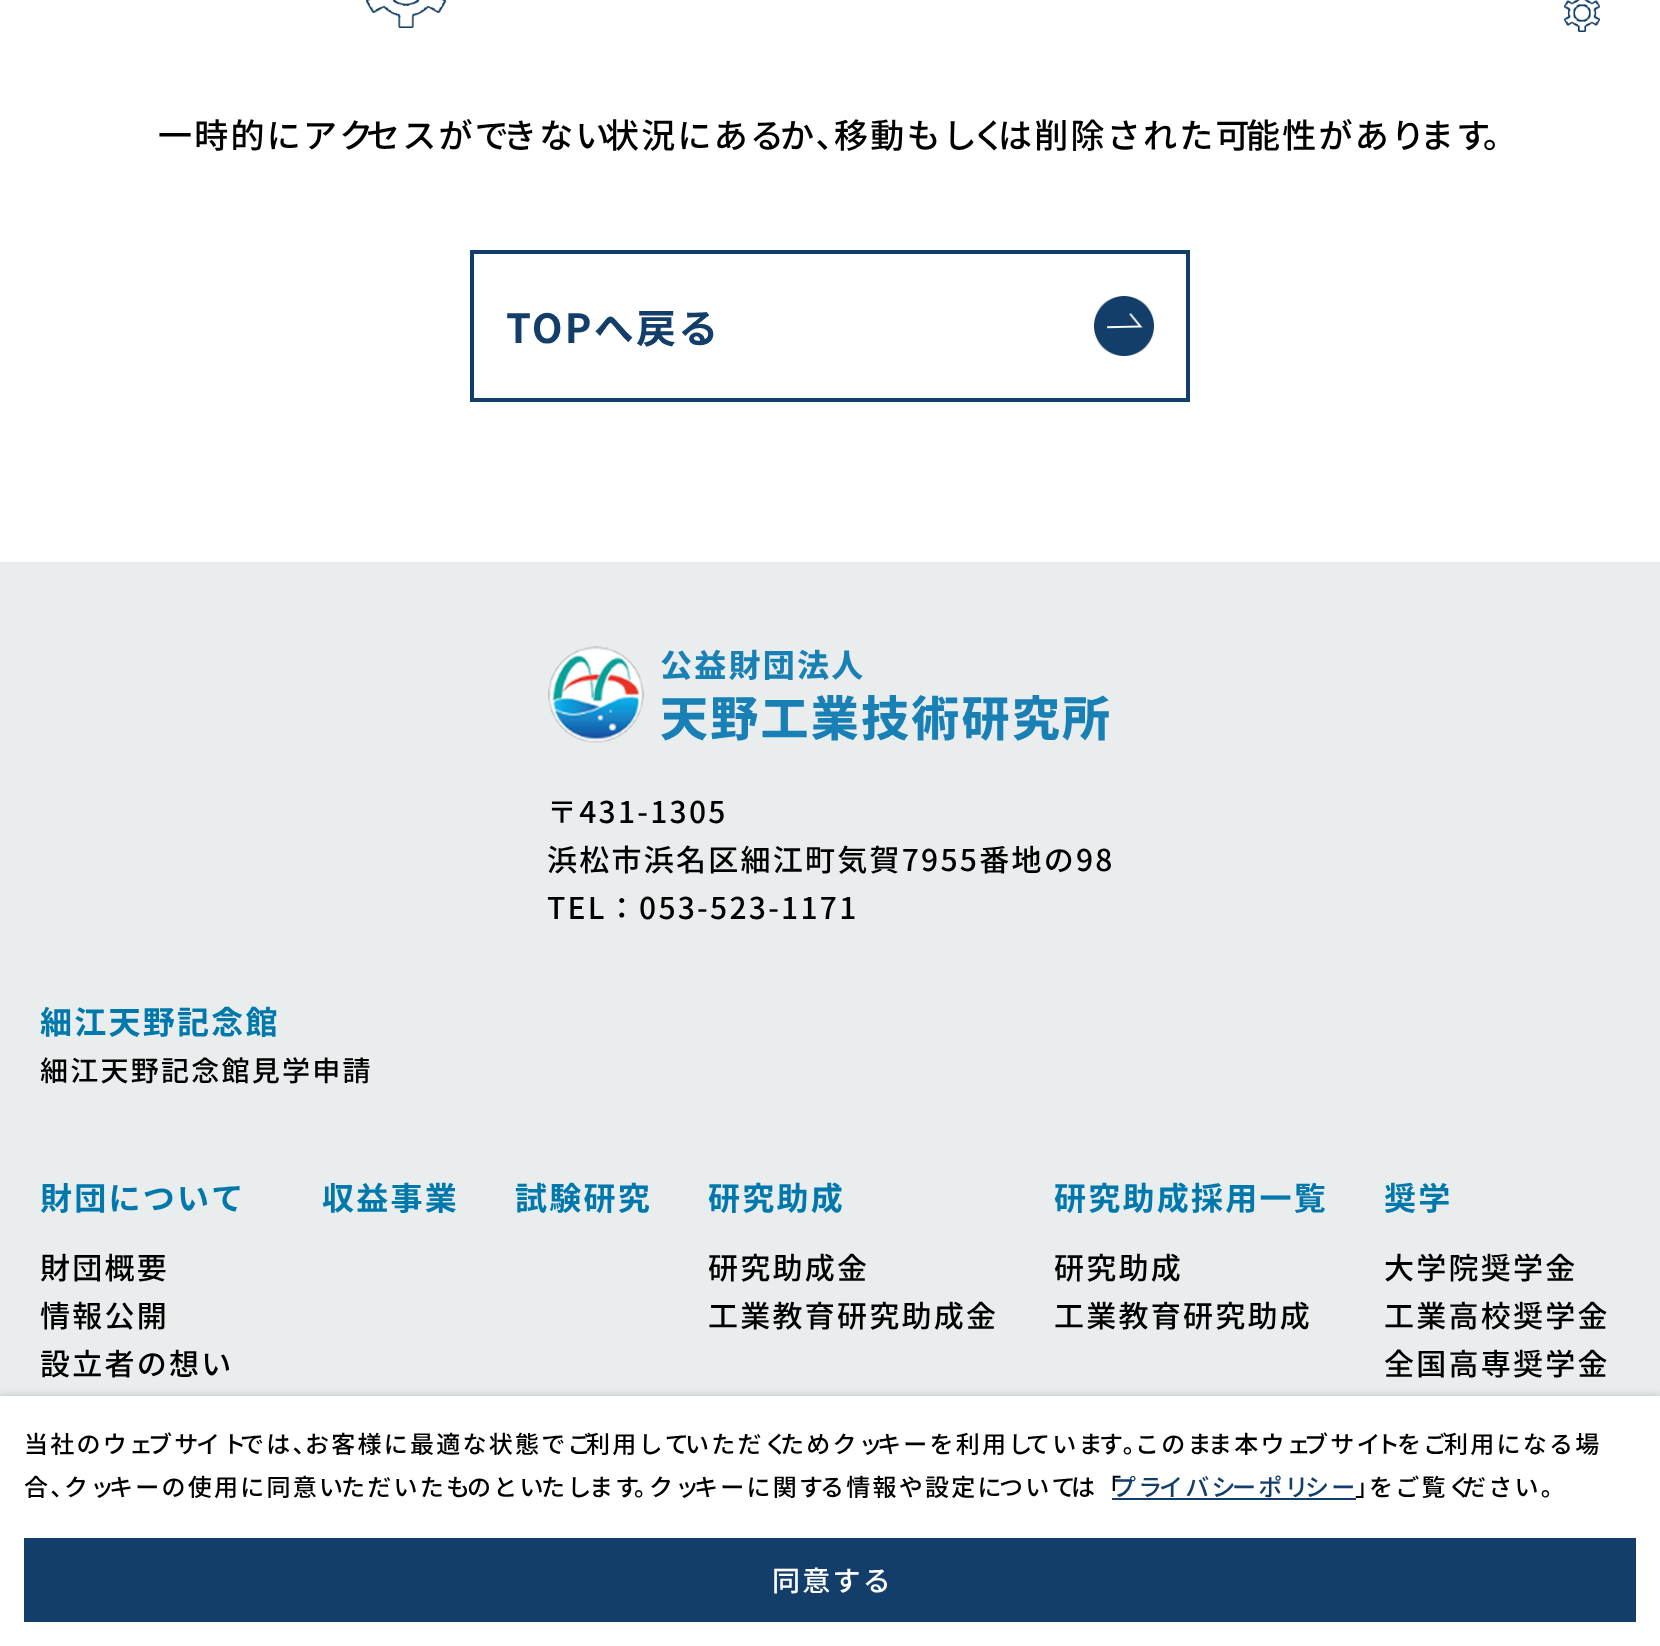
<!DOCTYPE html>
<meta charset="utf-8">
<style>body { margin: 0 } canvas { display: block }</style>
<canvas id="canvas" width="1660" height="1646"></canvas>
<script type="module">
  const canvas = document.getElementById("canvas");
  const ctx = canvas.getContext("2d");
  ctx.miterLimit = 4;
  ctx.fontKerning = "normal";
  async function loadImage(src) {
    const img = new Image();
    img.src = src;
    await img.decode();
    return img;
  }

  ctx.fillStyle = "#ffffff";
  ctx.fillRect(0, 0, 1660, 1646);
  ctx.drawImage(await loadImage("img1.png"), 366, 0, 80, 28);
  ctx.drawImage(await loadImage("img2.png"), 1564, 0, 36, 32);
  ctx.letterSpacing = "2.25px";
  ctx.font = "500 34px Noto Sans JP";
  ctx.fillStyle = "#000000";
  ctx.fillText("一時的にアク", 158, 148);
  ctx.fillText("セスがで", 366, 148);
  ctx.fillText("きない", 503, 148);
  ctx.fillText("状況にある", 605, 148);
  ctx.fillText("か、", 780, 148);
  ctx.fillText("移動もし", 834, 148);
  ctx.fillText("く", 972, 148);
  ctx.fillText("は削除された可", 998, 148);
  ctx.fillText("能性があり", 1246, 148);
  ctx.fillText("ます", 1420, 148);
  ctx.fillText("。", 1483, 148);
  ctx.strokeStyle = "#143e6a";
  ctx.lineWidth = 4;
  ctx.strokeRect(472, 252, 716, 148);
  ctx.font = "bold 40px Noto Sans JP";
  ctx.fillStyle = "#143e6a";
  ctx.fillText("TOPへ戻る", 506, 343);
  ctx.drawImage(await loadImage("img3.png"), 1094, 296, 60, 60);
  ctx.fillStyle = "#eaedee";
  ctx.fillRect(0, 562, 1660, 834);
  ctx.drawImage(await loadImage("img4.png"), 548, 646, 96, 97);
  ctx.font = "800 32px Noto Sans JP";
  ctx.fillStyle = "#1980b5";
  ctx.fillText("公益財団法人", 660, 677);
  ctx.font = "800 48px Noto Sans JP";
  ctx.fillText("天野工業技術研究所", 660, 736);
  ctx.font = "500 30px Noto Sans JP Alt";
  ctx.fillStyle = "#000000";
  ctx.fillText("〒431-1305", 547, 823);
  ctx.font = "500 30px Noto Sans JP";
  ctx.fillText("浜松市浜名区細江町気賀7955番地の98", 547, 871);
  ctx.font = "500 30px Noto Sans JP Alt";
  ctx.fillText("TEL：053-523-1171", 547, 919);
  ctx.font = "bold 32px Noto Sans JP";
  ctx.fillStyle = "#0178ac";
  ctx.fillText("細江天野記念館", 40, 1034);
  ctx.font = "500 28px Noto Sans JP";
  ctx.fillStyle = "#000000";
  ctx.fillText("細江天野記念館見学申請", 40, 1081);
  ctx.font = "bold 32px Noto Sans JP";
  ctx.fillStyle = "#0178ac";
  ctx.fillText("財団について", 40, 1210);
  ctx.font = "500 30px Noto Sans JP";
  ctx.fillStyle = "#000000";
  ctx.fillText("財団概要", 40, 1279);
  ctx.fillText("情報公開", 40, 1327);
  ctx.fillText("設立者の想い", 40, 1375);
  ctx.font = "bold 32px Noto Sans JP";
  ctx.fillStyle = "#0178ac";
  ctx.fillText("収益事業", 322, 1210);
  ctx.fillText("試験研究", 515, 1210);
  ctx.fillText("研究助成", 708, 1210);
  ctx.font = "500 30px Noto Sans JP";
  ctx.fillStyle = "#000000";
  ctx.fillText("研究助成金", 708, 1279);
  ctx.fillText("工業教育研究助成金", 708, 1327);
  ctx.font = "bold 32px Noto Sans JP";
  ctx.fillStyle = "#0178ac";
  ctx.fillText("研究助成採用一覧", 1054, 1210);
  ctx.font = "500 30px Noto Sans JP";
  ctx.fillStyle = "#000000";
  ctx.fillText("研究助成", 1054, 1279);
  ctx.fillText("工業教育研究助成", 1054, 1327);
  ctx.font = "bold 32px Noto Sans JP";
  ctx.fillStyle = "#0178ac";
  ctx.fillText("奨学", 1384, 1210);
  ctx.font = "500 30px Noto Sans JP";
  ctx.fillStyle = "#000000";
  ctx.fillText("大学院奨学金", 1384, 1279);
  ctx.fillText("工業高校奨学金", 1384, 1327);
  ctx.fillText("全国高専奨学金", 1384, 1375);
  ctx.fillStyle = "rgba(0, 0, 0, 0.2)";
  ctx.filter = "blur(4px)";
  ctx.beginPath();
  ctx.rect(0, 1396, 1660, 250);
  ctx.fill();
  ctx.filter = "none";
  ctx.fillStyle = "#ffffff";
  ctx.fillRect(0, 1396, 1660, 250);
  ctx.font = "500 24px Noto Sans JP";
  ctx.fillStyle = "#000000";
  ctx.fillText("当社のウェ", 24, 1453);
  ctx.fillText("ブサ", 148, 1453);
  ctx.fillText("イト", 196, 1453);
  ctx.fillText("では、", 240, 1453);
  ctx.fillText("お客様に最適な状態でご", 305, 1453);
  ctx.fillText("利用して", 586, 1453);
  ctx.fillText("いただく", 685, 1453);
  ctx.fillText("ためクッ", 780, 1453);
  ctx.fillText("キーを利用し", 877, 1453);
  ctx.fillText("ていま", 1026, 1453);
  ctx.fillText("す。", 1099, 1453);
  ctx.fillText("このま", 1135, 1453);
  ctx.fillText("ま本ウェ", 1208, 1453);
  ctx.fillText("ブサイ", 1304, 1453);
  ctx.fillText("ト", 1376, 1453);
  ctx.fillText("をご", 1397, 1453);
  ctx.fillText("利用になる場", 1444, 1453);
  ctx.fillText("合、", 24, 1496);
  ctx.fillText("クッ", 64, 1496);
  ctx.fillText("キーの使用に同意い", 109, 1496);
  ctx.fillText("ただいたも", 341, 1496);
  ctx.fillText("のとい", 467, 1496);
  ctx.fillText("たし", 541, 1496);
  ctx.fillText("ます", 589, 1496);
  ctx.fillText("。", 634, 1496);
  ctx.fillText("クッ", 649, 1496);
  ctx.fillText("キーに関す", 694, 1496);
  ctx.fillText("る情報や設定に", 820, 1496);
  ctx.fillText("ついて", 999, 1496);
  ctx.fillText("は「", 1071, 1496);
  ctx.fillStyle = "#143e6a";
  ctx.fillText("プラ", 1112, 1496);
  ctx.fillText("イバシ", 1159, 1496);
  ctx.fillText("ーポリ", 1232, 1496);
  ctx.fillText("シー", 1305, 1496);
  ctx.fillRect(1112, 1498, 244, 2);
  ctx.fillStyle = "#000000";
  ctx.fillText("」", 1355, 1496);
  ctx.fillText("をご覧く", 1369, 1496);
  ctx.fillText("ださい。", 1462, 1496);
  ctx.fillStyle = "#143e6a";
  ctx.fillRect(24, 1538, 1612, 84);
  ctx.font = "500 28px Noto Sans JP";
  ctx.fillStyle = "#ffffff";
  ctx.fillText("同意する", 772, 1591);
</script>
